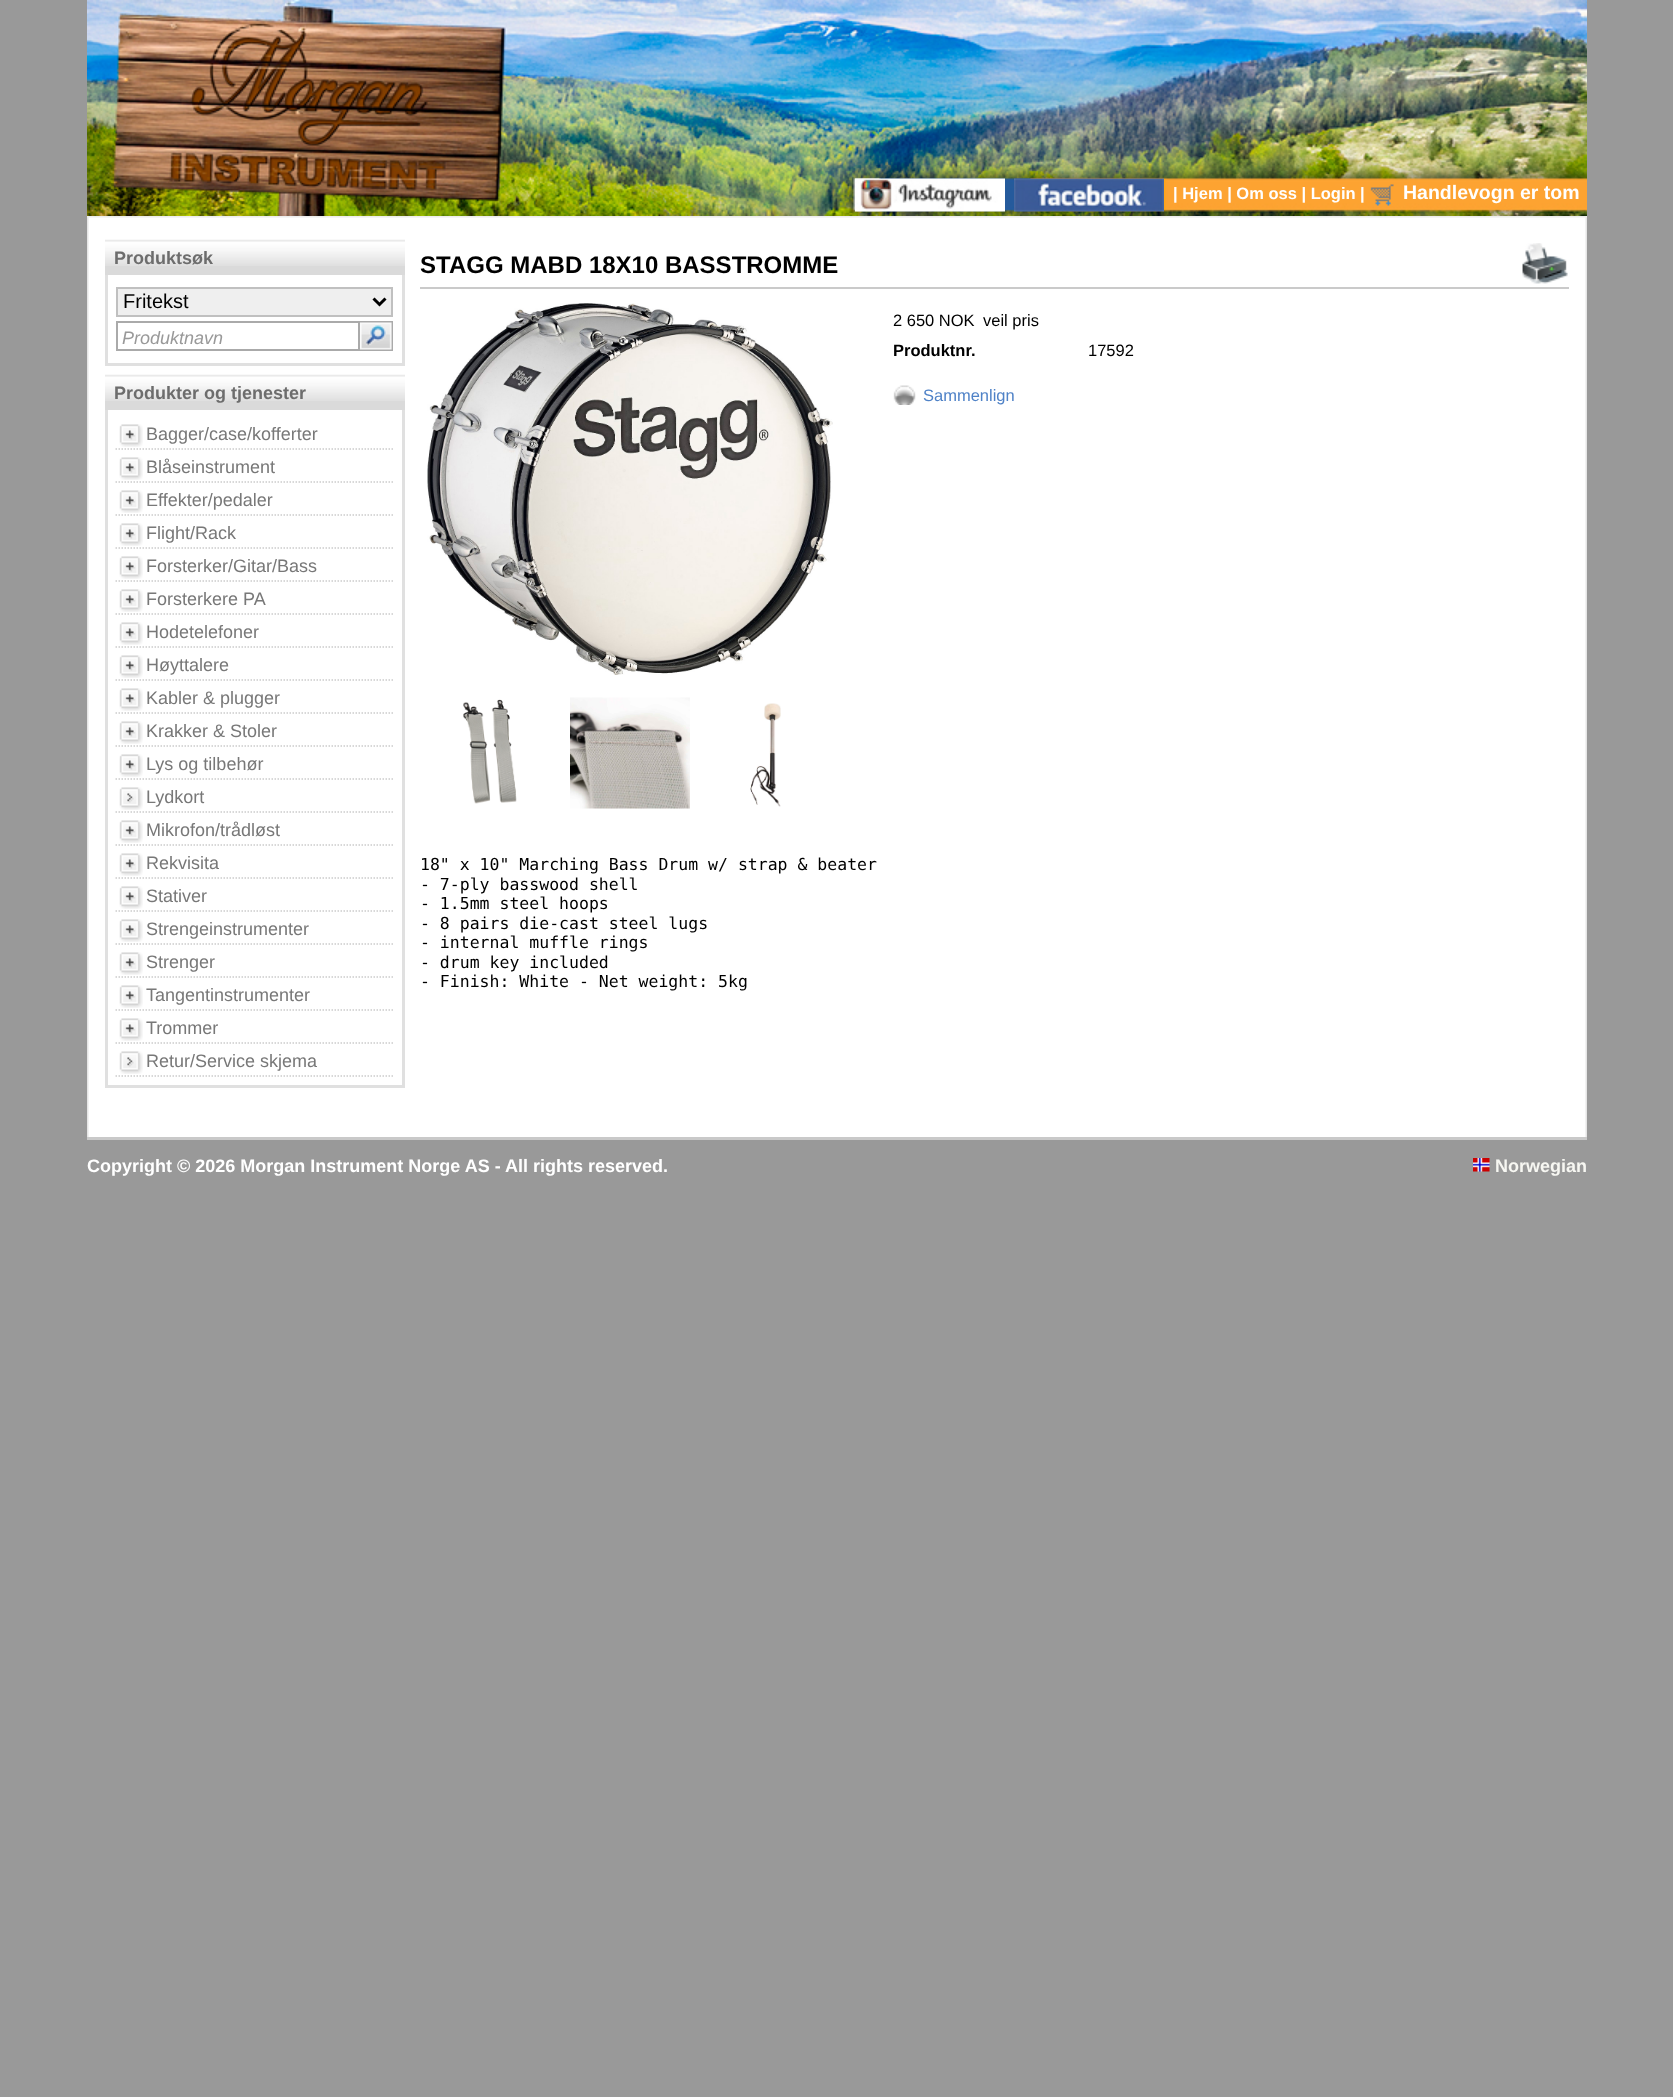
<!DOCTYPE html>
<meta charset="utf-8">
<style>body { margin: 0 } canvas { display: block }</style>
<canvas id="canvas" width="1673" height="2097"></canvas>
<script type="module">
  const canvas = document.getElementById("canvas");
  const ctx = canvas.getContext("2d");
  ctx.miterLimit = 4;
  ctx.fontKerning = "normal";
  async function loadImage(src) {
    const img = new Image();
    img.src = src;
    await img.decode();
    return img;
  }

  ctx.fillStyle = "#999999";
  ctx.fillRect(0, 0, 1673, 2097);
  ctx.drawImage(await loadImage("img1.png"), 87, 0, 1500, 216);
  ctx.drawImage(await loadImage("img2.png"), 855, 178, 150, 34);
  ctx.drawImage(await loadImage("img3.png"), 1014, 178, 150, 34);
  ctx.font = "bold 16.5px Liberation Sans";
  ctx.fillStyle = "#ffffff";
  ctx.fillText("| Hjem | Om oss | Login |", 1173, 199);
  ctx.drawImage(await loadImage("img4.png"), 1370, 184, 24, 22);
  ctx.font = "bold 19.5px Liberation Sans";
  ctx.fillText("Handlevogn er tom", 1403, 199);
  ctx.drawImage(await loadImage("img5.png"), 87, 218, 1500, 919);
  ctx.fillStyle = "#c9c9c9";
  ctx.fillRect(87, 1137, 1500, 3);
  ctx.drawImage(await loadImage("img6.png"), 87, 216, 1500, 2);
  ctx.fillStyle = "#dadada";
  ctx.fillRect(105, 266, 300, 9);
  ctx.drawImage(await loadImage("img7.png"), 105, 239, 300, 27);
  ctx.font = "bold 18px Liberation Sans";
  ctx.fillStyle = "#6d6d6d";
  ctx.fillText("Produktsøk", 114, 264);
  ctx.fillStyle = "#e0e0e0";
  ctx.fillRect(402, 275, 3, 91);
  ctx.fillRect(105, 363, 300, 3);
  ctx.fillRect(105, 275, 3, 91);
  ctx.fillStyle = "#efefef";
  ctx.beginPath();
  ctx.rect(117, 288, 275, 28);
  ctx.fill();
  ctx.strokeStyle = "#c0c0c0";
  ctx.lineWidth = 2;
  ctx.stroke();
  ctx.beginPath();
  ctx.moveTo(373.5, 298.5);
  ctx.lineTo(379.5, 304.5);
  ctx.lineTo(385.5, 298.5);
  ctx.strokeStyle = "#000000";
  ctx.lineWidth = 3;
  ctx.stroke();
  ctx.font = "20px Liberation Sans";
  ctx.fillStyle = "#000000";
  ctx.fillText("Fritekst", 123, 308);
  ctx.strokeStyle = "#aaaaaa";
  ctx.lineWidth = 2;
  ctx.strokeRect(117, 322, 242, 28);
  ctx.drawImage(await loadImage("img8.png"), 360, 321, 33, 30);
  ctx.font = "italic 18px Liberation Sans";
  ctx.fillStyle = "#999999";
  ctx.fillText("Produktnavn", 122, 344);
  ctx.fillStyle = "#dadada";
  ctx.fillRect(105, 401, 300, 9);
  ctx.drawImage(await loadImage("img7.png"), 105, 374, 300, 27);
  ctx.font = "bold 18px Liberation Sans";
  ctx.fillStyle = "#6d6d6d";
  ctx.fillText("Produkter og tjenester", 114, 399);
  ctx.fillStyle = "#e0e0e0";
  ctx.fillRect(402, 410, 3, 678);
  ctx.fillRect(105, 1085, 300, 3);
  ctx.fillRect(105, 410, 3, 678);
  ctx.drawImage(await loadImage("img9.png"), 119, 424, 24, 23);
  ctx.beginPath();
  ctx.moveTo(115.5, 449);
  ctx.lineTo(394.5, 449);
  ctx.strokeStyle = "#cccccc";
  ctx.lineWidth = 1.5;
  ctx.setLineDash([1.5, 1.5]);
  ctx.stroke();
  ctx.font = "18px Liberation Sans";
  ctx.fillStyle = "#787878";
  ctx.fillText("Bagger/case/kofferter", 146, 440);
  ctx.drawImage(await loadImage("img9.png"), 119, 457, 24, 23);
  ctx.beginPath();
  ctx.moveTo(115.5, 482);
  ctx.lineTo(394.5, 482);
  ctx.stroke();
  ctx.fillText("Blåseinstrument", 146, 473);
  ctx.drawImage(await loadImage("img9.png"), 119, 490, 24, 23);
  ctx.beginPath();
  ctx.moveTo(115.5, 515);
  ctx.lineTo(394.5, 515);
  ctx.stroke();
  ctx.fillText("Effekter/pedaler", 146, 506);
  ctx.drawImage(await loadImage("img9.png"), 119, 523, 24, 23);
  ctx.beginPath();
  ctx.moveTo(115.5, 548);
  ctx.lineTo(394.5, 548);
  ctx.stroke();
  ctx.fillText("Flight/Rack", 146, 539);
  ctx.drawImage(await loadImage("img9.png"), 119, 556, 24, 23);
  ctx.beginPath();
  ctx.moveTo(115.5, 581);
  ctx.lineTo(394.5, 581);
  ctx.stroke();
  ctx.fillText("Forsterker/Gitar/Bass", 146, 572);
  ctx.drawImage(await loadImage("img9.png"), 119, 589, 24, 23);
  ctx.beginPath();
  ctx.moveTo(115.5, 614);
  ctx.lineTo(394.5, 614);
  ctx.stroke();
  ctx.fillText("Forsterkere PA", 146, 605);
  ctx.drawImage(await loadImage("img9.png"), 119, 622, 24, 23);
  ctx.beginPath();
  ctx.moveTo(115.5, 647);
  ctx.lineTo(394.5, 647);
  ctx.stroke();
  ctx.fillText("Hodetelefoner", 146, 638);
  ctx.drawImage(await loadImage("img9.png"), 119, 655, 24, 23);
  ctx.beginPath();
  ctx.moveTo(115.5, 680);
  ctx.lineTo(394.5, 680);
  ctx.stroke();
  ctx.fillText("Høyttalere", 146, 671);
  ctx.drawImage(await loadImage("img9.png"), 119, 688, 24, 23);
  ctx.beginPath();
  ctx.moveTo(115.5, 713);
  ctx.lineTo(394.5, 713);
  ctx.stroke();
  ctx.fillText("Kabler & plugger", 146, 704);
  ctx.drawImage(await loadImage("img9.png"), 119, 721, 24, 23);
  ctx.beginPath();
  ctx.moveTo(115.5, 746);
  ctx.lineTo(394.5, 746);
  ctx.stroke();
  ctx.fillText("Krakker & Stoler", 146, 737);
  ctx.drawImage(await loadImage("img9.png"), 119, 754, 24, 23);
  ctx.beginPath();
  ctx.moveTo(115.5, 779);
  ctx.lineTo(394.5, 779);
  ctx.stroke();
  ctx.fillText("Lys og tilbehør", 146, 770);
  ctx.drawImage(await loadImage("img10.png"), 119, 787, 24, 23);
  ctx.beginPath();
  ctx.moveTo(115.5, 812);
  ctx.lineTo(394.5, 812);
  ctx.stroke();
  ctx.fillText("Lydkort", 146, 803);
  ctx.drawImage(await loadImage("img9.png"), 119, 820, 24, 23);
  ctx.beginPath();
  ctx.moveTo(115.5, 845);
  ctx.lineTo(394.5, 845);
  ctx.stroke();
  ctx.fillText("Mikrofon/trådløst", 146, 836);
  ctx.drawImage(await loadImage("img9.png"), 119, 853, 24, 23);
  ctx.beginPath();
  ctx.moveTo(115.5, 878);
  ctx.lineTo(394.5, 878);
  ctx.stroke();
  ctx.fillText("Rekvisita", 146, 869);
  ctx.drawImage(await loadImage("img9.png"), 119, 886, 24, 23);
  ctx.beginPath();
  ctx.moveTo(115.5, 911);
  ctx.lineTo(394.5, 911);
  ctx.stroke();
  ctx.fillText("Stativer", 146, 902);
  ctx.drawImage(await loadImage("img9.png"), 119, 919, 24, 23);
  ctx.beginPath();
  ctx.moveTo(115.5, 944);
  ctx.lineTo(394.5, 944);
  ctx.stroke();
  ctx.fillText("Strengeinstrumenter", 146, 935);
  ctx.drawImage(await loadImage("img9.png"), 119, 952, 24, 23);
  ctx.beginPath();
  ctx.moveTo(115.5, 977);
  ctx.lineTo(394.5, 977);
  ctx.stroke();
  ctx.fillText("Strenger", 146, 968);
  ctx.drawImage(await loadImage("img9.png"), 119, 985, 24, 23);
  ctx.beginPath();
  ctx.moveTo(115.5, 1010);
  ctx.lineTo(394.5, 1010);
  ctx.stroke();
  ctx.fillText("Tangentinstrumenter", 146, 1001);
  ctx.drawImage(await loadImage("img9.png"), 119, 1018, 24, 23);
  ctx.beginPath();
  ctx.moveTo(115.5, 1043);
  ctx.lineTo(394.5, 1043);
  ctx.stroke();
  ctx.fillText("Trommer", 146, 1034);
  ctx.drawImage(await loadImage("img10.png"), 119, 1051, 24, 23);
  ctx.beginPath();
  ctx.moveTo(115.5, 1076);
  ctx.lineTo(394.5, 1076);
  ctx.stroke();
  ctx.fillText("Retur/Service skjema", 146, 1067);
  ctx.fillStyle = "#cacaca";
  ctx.fillRect(420, 287, 1149, 2);
  ctx.font = "bold 24px Liberation Sans";
  ctx.fillStyle = "#000000";
  ctx.fillText("STAGG MABD 18X10 BASSTROMME", 420, 273);
  ctx.drawImage(await loadImage("img11.png"), 1522, 243, 46, 41);
  ctx.drawImage(await loadImage("img12.png"), 427, 303, 406, 372);
  ctx.drawImage(await loadImage("img13.png"), 463, 699, 54, 105);
  ctx.drawImage(await loadImage("img14.png"), 570, 697, 120, 112);
  ctx.drawImage(await loadImage("img15.png"), 750, 703, 31, 104);
  ctx.font = "16.5px Liberation Sans";
  ctx.fillText("2 650 NOK", 893, 326);
  ctx.fillText("veil pris", 983, 326);
  ctx.font = "bold 16.5px Liberation Sans";
  ctx.fillText("Produktnr.", 893, 356);
  ctx.font = "16.5px Liberation Sans";
  ctx.fillText("17592", 1088, 356);
  ctx.drawImage(await loadImage("img16.png"), 893, 385, 23, 20);
  ctx.fillStyle = "#4f82c7";
  ctx.fillText("Sammenlign", 923, 401);
  ctx.font = "16.5px DejaVu Sans Mono";
  ctx.fillStyle = "#000000";
  ctx.fillText("18\" x 10\" Marching Bass Drum w/ strap & beater", 420, 870);
  ctx.fillText("- 7-ply basswood shell", 420, 890);
  ctx.fillText("- 1.5mm steel hoops", 420, 909);
  ctx.fillText("- 8 pairs die-cast steel lugs", 420, 929);
  ctx.fillText("- internal muffle rings", 420, 948);
  ctx.fillText("- drum key included", 420, 968);
  ctx.fillText("- Finish: White - Net weight: 5kg", 420, 987);
  ctx.font = "bold 18px Liberation Sans";
  ctx.fillStyle = "#ffffff";
  ctx.fillText("Copyright © 2026 Morgan Instrument Norge AS - All rights reserved.", 87, 1172);
  ctx.drawImage(await loadImage("img17.png"), 1473, 1158, 17, 14);
  ctx.fillStyle = "#f7f7f2";
  ctx.fillText("Norwegian", 1495, 1172);
</script>
